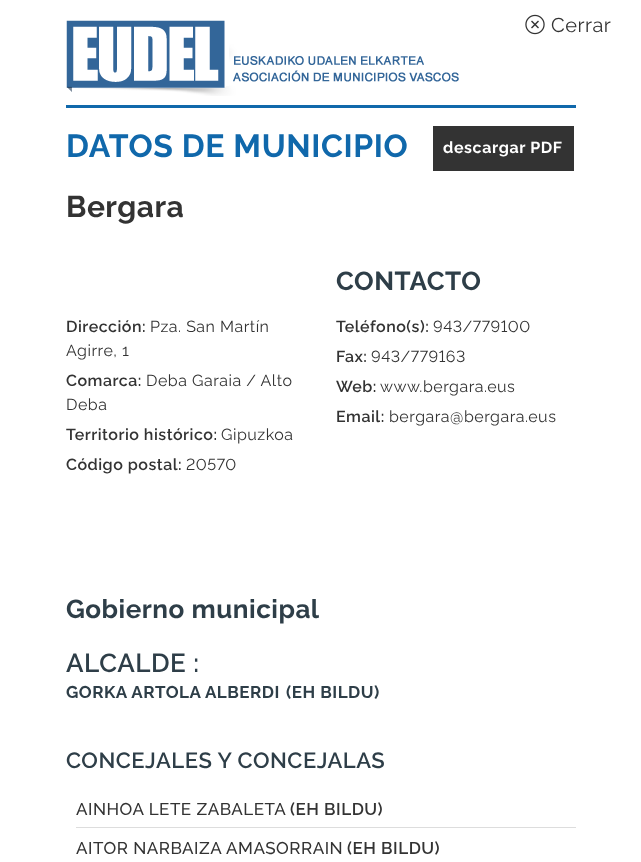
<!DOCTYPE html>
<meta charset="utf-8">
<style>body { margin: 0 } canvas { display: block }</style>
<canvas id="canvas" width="641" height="862"></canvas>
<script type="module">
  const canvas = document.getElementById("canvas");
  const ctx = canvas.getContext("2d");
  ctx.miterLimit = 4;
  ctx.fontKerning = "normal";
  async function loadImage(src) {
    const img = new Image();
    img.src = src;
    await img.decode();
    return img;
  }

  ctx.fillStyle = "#ffffff";
  ctx.fillRect(0, 0, 641, 862);
  ctx.drawImage(await loadImage("img1.png"), 525, 14, 20, 21);
  ctx.letterSpacing = "0.5px";
  ctx.font = "20px Raleway";
  ctx.fillStyle = "#333333";
  ctx.fillText("Cerrar", 551, 32);
  ctx.fillStyle = "#1068ab";
  ctx.fillRect(66, 105, 510, 3);
  ctx.drawImage(await loadImage("img2.png"), 66, 20, 393, 76);
  ctx.letterSpacing = "0.6px";
  ctx.font = "bold 32px Raleway";
  ctx.fillText("DATOS DE MUNICIPIO", 66, 157);
  ctx.fillStyle = "#333333";
  ctx.fillRect(433, 126, 141, 45);
  ctx.font = "bold 16px Raleway";
  ctx.fillStyle = "#ffffff";
  ctx.fillText("descargar PDF", 443, 153);
  ctx.letterSpacing = "0.5px";
  ctx.font = "bold 30px Raleway";
  ctx.fillStyle = "#333333";
  ctx.fillText("Bergara", 66, 217);
  ctx.font = "600 16px Raleway";
  ctx.fillText("Dirección:", 66, 332);
  ctx.font = "16px Raleway";
  ctx.fillText("Pza. San Martín", 150, 332);
  ctx.fillText("Agirre, 1", 66, 356);
  ctx.font = "600 16px Raleway";
  ctx.fillText("Comarca:", 66, 386);
  ctx.font = "16px Raleway";
  ctx.fillText("Deba Garaia / Alto", 146, 386);
  ctx.fillText("Deba", 66, 410);
  ctx.font = "600 16px Raleway";
  ctx.fillText("Territorio histórico:", 66, 440);
  ctx.font = "16px Raleway";
  ctx.fillText("Gipuzkoa", 221, 440);
  ctx.font = "600 16px Raleway";
  ctx.fillText("Código postal:", 66, 470);
  ctx.font = "16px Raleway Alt";
  ctx.fillText("20570", 186, 470);
  ctx.font = "bold 26px Raleway";
  ctx.fillStyle = "#2e3e48";
  ctx.fillText("CONTACTO", 336, 290);
  ctx.font = "600 16px Raleway";
  ctx.fillStyle = "#333333";
  ctx.fillText("Teléfono(s):", 336, 332);
  ctx.font = "16px Raleway Alt";
  ctx.fillText("943/779100", 433, 332);
  ctx.font = "600 16px Raleway";
  ctx.fillText("Fax:", 336, 362);
  ctx.font = "16px Raleway Alt";
  ctx.fillText("943/779163", 371, 362);
  ctx.font = "600 16px Raleway";
  ctx.fillText("Web:", 336, 392);
  ctx.font = "16px Raleway";
  ctx.fillText("www.bergara.eus", 380, 392);
  ctx.font = "600 16px Raleway";
  ctx.fillText("Email:", 336, 422);
  ctx.font = "16px Raleway";
  ctx.fillText("bergara@bergara.eus", 389, 422);
  ctx.font = "bold 26px Raleway";
  ctx.fillStyle = "#2e3e48";
  ctx.fillText("Gobierno municipal", 66, 618);
  ctx.font = "600 26px Raleway";
  ctx.fillText("ALCALDE :", 66, 672);
  ctx.font = "bold 17px Raleway";
  ctx.fillText("GORKA ARTOLA ALBERDI", 66, 698);
  ctx.fillText("(EH BILDU)", 286, 698);
  ctx.font = "600 22px Raleway";
  ctx.fillText("CONCEJALES Y CONCEJALAS", 66, 768);
  ctx.fillStyle = "#dddddd";
  ctx.fillRect(76, 827, 500, 1);
  ctx.font = "500 17px Raleway";
  ctx.fillStyle = "#333333";
  ctx.fillText("AINHOA LETE ZABALETA", 76, 815);
  ctx.font = "600 17px Raleway";
  ctx.fillText("(EH BILDU)", 290, 815);
  ctx.font = "500 17px Raleway";
  ctx.fillText("AITOR NARBAIZA AMASORRAIN", 76, 854);
  ctx.font = "600 17px Raleway";
  ctx.fillText("(EH BILDU)", 347, 854);
</script>
